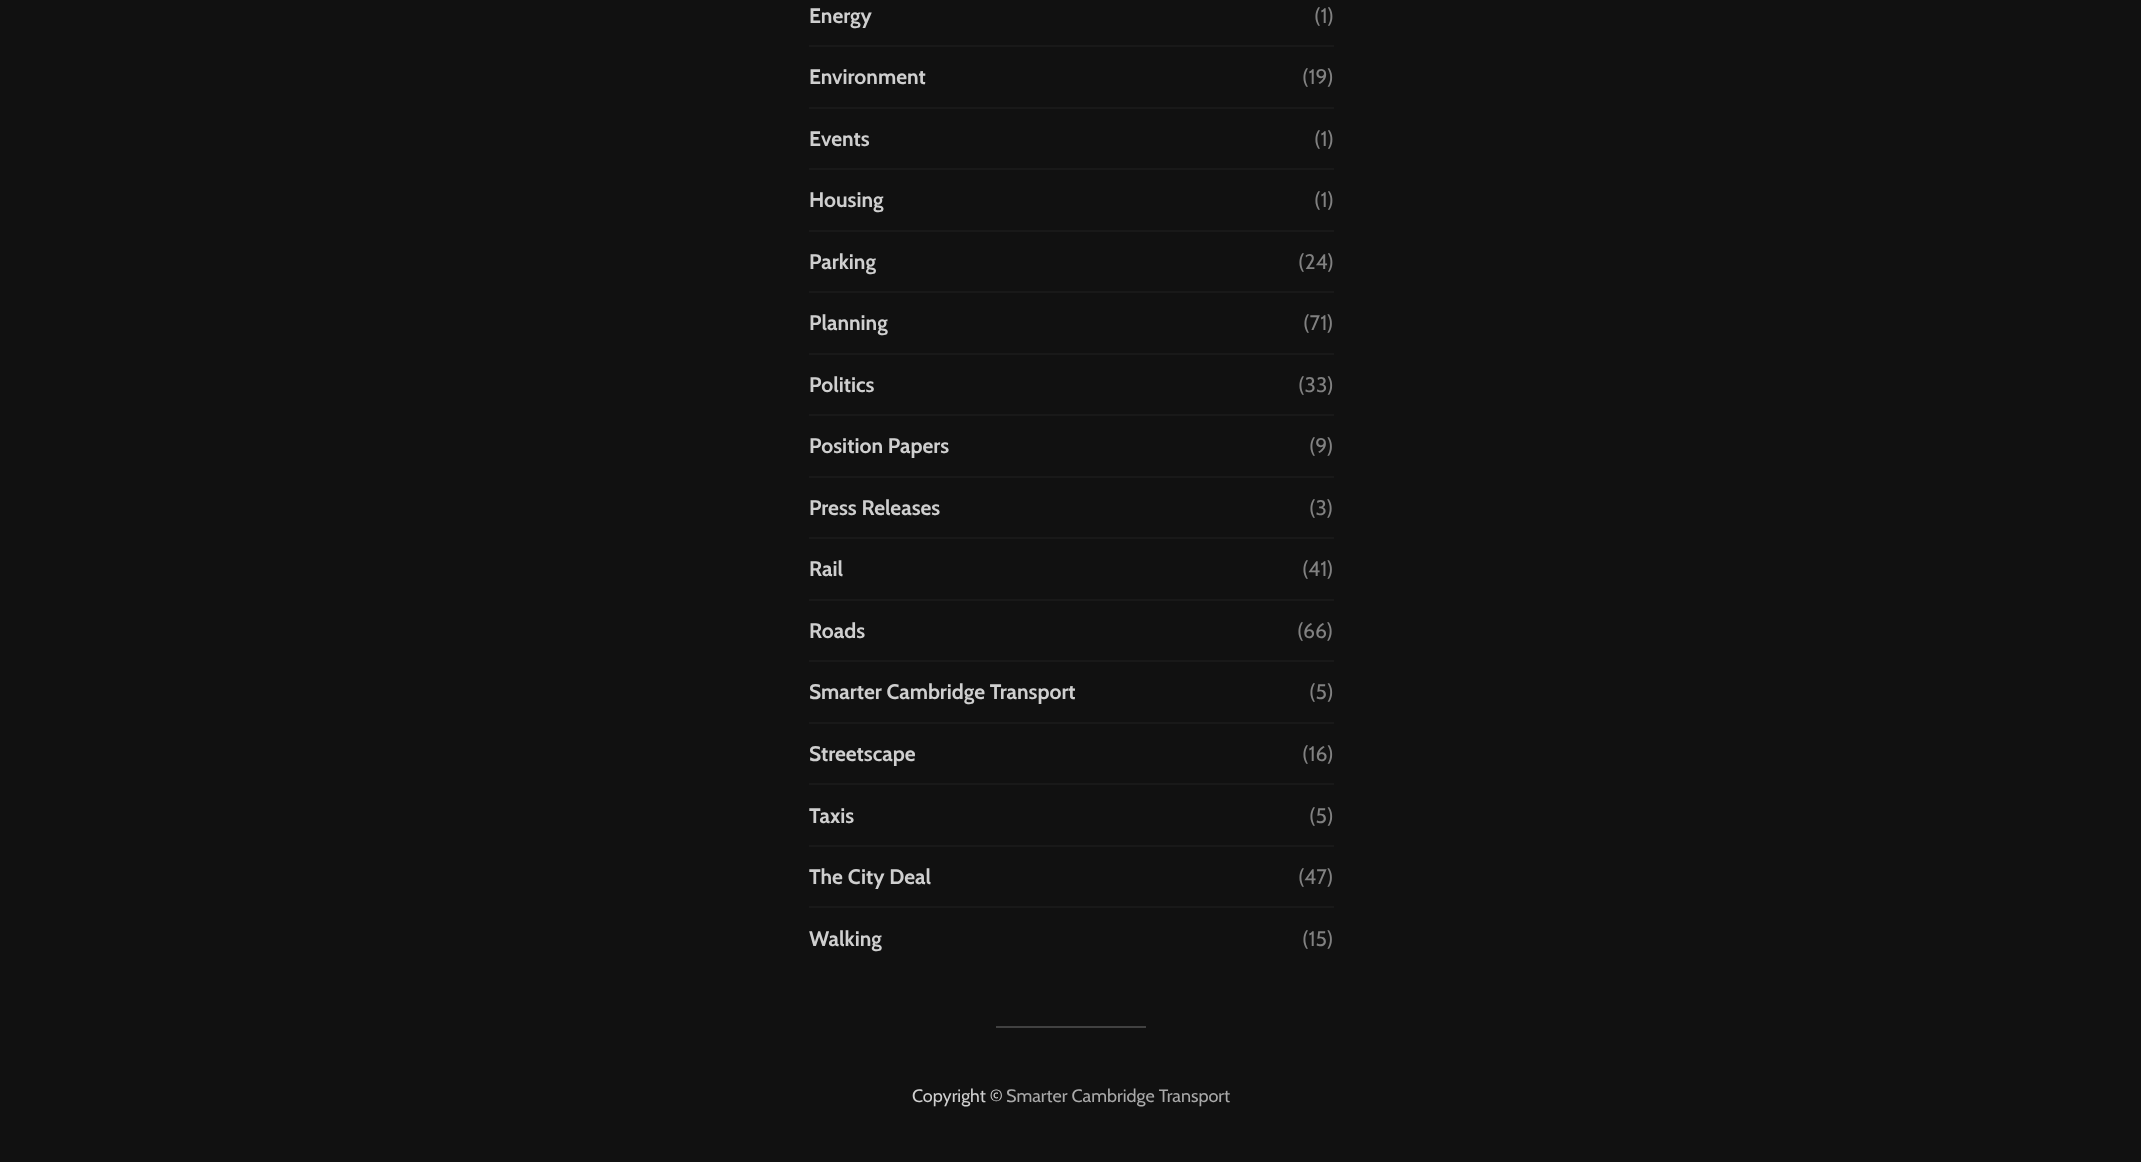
<!DOCTYPE html>
<meta charset="utf-8">
<style>body { margin: 0 } canvas { display: block }</style>
<canvas id="canvas" width="2141" height="1162"></canvas>
<script type="module">
  const canvas = document.getElementById("canvas");
  const ctx = canvas.getContext("2d");
  ctx.miterLimit = 4;
  ctx.fontKerning = "normal";

  ctx.fillStyle = "#111111";
  ctx.fillRect(0, 0, 2141, 1162);
  ctx.fillStyle = "#191919";
  ctx.fillRect(809, 45, 525, 2);
  ctx.font = "bold 21px Cabin";
  ctx.fillStyle = "#cfcfcf";
  ctx.fillText("Energy", 809, 23);
  ctx.font = "21px Cabin";
  ctx.fillStyle = "#818181";
  ctx.fillText("(1)", 1314, 23);
  ctx.fillStyle = "#191919";
  ctx.fillRect(809, 107, 525, 2);
  ctx.font = "bold 21px Cabin";
  ctx.fillStyle = "#cfcfcf";
  ctx.fillText("Environment", 809, 84);
  ctx.font = "21px Cabin";
  ctx.fillStyle = "#818181";
  ctx.fillText("(19)", 1302, 84);
  ctx.fillStyle = "#191919";
  ctx.fillRect(809, 168, 525, 2);
  ctx.font = "bold 21px Cabin";
  ctx.fillStyle = "#cfcfcf";
  ctx.fillText("Events", 809, 146);
  ctx.font = "21px Cabin";
  ctx.fillStyle = "#818181";
  ctx.fillText("(1)", 1314, 146);
  ctx.fillStyle = "#191919";
  ctx.fillRect(809, 230, 525, 2);
  ctx.font = "bold 21px Cabin";
  ctx.fillStyle = "#cfcfcf";
  ctx.fillText("Housing", 809, 207);
  ctx.font = "21px Cabin";
  ctx.fillStyle = "#818181";
  ctx.fillText("(1)", 1314, 207);
  ctx.fillStyle = "#191919";
  ctx.fillRect(809, 291, 525, 2);
  ctx.font = "bold 21px Cabin";
  ctx.fillStyle = "#cfcfcf";
  ctx.fillText("Parking", 809, 269);
  ctx.font = "21px Cabin";
  ctx.fillStyle = "#818181";
  ctx.fillText("(24)", 1298, 269);
  ctx.fillStyle = "#191919";
  ctx.fillRect(809, 353, 525, 2);
  ctx.font = "bold 21px Cabin";
  ctx.fillStyle = "#cfcfcf";
  ctx.fillText("Planning", 809, 330);
  ctx.font = "21px Cabin";
  ctx.fillStyle = "#818181";
  ctx.fillText("(71)", 1303, 330);
  ctx.fillStyle = "#191919";
  ctx.fillRect(809, 414, 525, 2);
  ctx.font = "bold 21px Cabin";
  ctx.fillStyle = "#cfcfcf";
  ctx.fillText("Politics", 809, 392);
  ctx.font = "21px Cabin";
  ctx.fillStyle = "#818181";
  ctx.fillText("(33)", 1298, 392);
  ctx.fillStyle = "#191919";
  ctx.fillRect(809, 476, 525, 2);
  ctx.font = "bold 21px Cabin";
  ctx.fillStyle = "#cfcfcf";
  ctx.fillText("Position Papers", 809, 453);
  ctx.font = "21px Cabin";
  ctx.fillStyle = "#818181";
  ctx.fillText("(9)", 1309, 453);
  ctx.fillStyle = "#191919";
  ctx.fillRect(809, 537, 525, 2);
  ctx.font = "bold 21px Cabin";
  ctx.fillStyle = "#cfcfcf";
  ctx.fillText("Press Releases", 809, 515);
  ctx.font = "21px Cabin";
  ctx.fillStyle = "#818181";
  ctx.fillText("(3)", 1309, 515);
  ctx.fillStyle = "#191919";
  ctx.fillRect(809, 599, 525, 2);
  ctx.font = "bold 21px Cabin";
  ctx.fillStyle = "#cfcfcf";
  ctx.fillText("Rail", 809, 576);
  ctx.font = "21px Cabin";
  ctx.fillStyle = "#818181";
  ctx.fillText("(41)", 1302, 576);
  ctx.fillStyle = "#191919";
  ctx.fillRect(809, 660, 525, 2);
  ctx.font = "bold 21px Cabin";
  ctx.fillStyle = "#cfcfcf";
  ctx.fillText("Roads", 809, 638);
  ctx.font = "21px Cabin";
  ctx.fillStyle = "#818181";
  ctx.fillText("(66)", 1297, 638);
  ctx.fillStyle = "#191919";
  ctx.fillRect(809, 722, 525, 2);
  ctx.font = "bold 21px Cabin";
  ctx.fillStyle = "#cfcfcf";
  ctx.fillText("Smarter Cambridge Transport", 809, 699);
  ctx.font = "21px Cabin";
  ctx.fillStyle = "#818181";
  ctx.fillText("(5)", 1309, 699);
  ctx.fillStyle = "#191919";
  ctx.fillRect(809, 783, 525, 2);
  ctx.font = "bold 21px Cabin";
  ctx.fillStyle = "#cfcfcf";
  ctx.fillText("Streetscape", 809, 761);
  ctx.font = "21px Cabin";
  ctx.fillStyle = "#818181";
  ctx.fillText("(16)", 1302, 761);
  ctx.fillStyle = "#191919";
  ctx.fillRect(809, 845, 525, 2);
  ctx.font = "bold 21px Cabin";
  ctx.fillStyle = "#cfcfcf";
  ctx.fillText("Taxis", 809, 823);
  ctx.font = "21px Cabin";
  ctx.fillStyle = "#818181";
  ctx.fillText("(5)", 1309, 823);
  ctx.fillStyle = "#191919";
  ctx.fillRect(809, 906, 525, 2);
  ctx.font = "bold 21px Cabin";
  ctx.fillStyle = "#cfcfcf";
  ctx.fillText("The City Deal", 809, 884);
  ctx.font = "21px Cabin";
  ctx.fillStyle = "#818181";
  ctx.fillText("(47)", 1298, 884);
  ctx.font = "bold 21px Cabin";
  ctx.fillStyle = "#cfcfcf";
  ctx.fillText("Walking", 809, 946);
  ctx.font = "21px Cabin";
  ctx.fillStyle = "#818181";
  ctx.fillText("(15)", 1302, 946);
  ctx.fillStyle = "#414141";
  ctx.fillRect(996, 1026, 150, 2);
  ctx.font = "18px Cabin";
  ctx.fillStyle = "#cfcfcf";
  ctx.fillText("Copyright ©", 912, 1102);
  ctx.fillStyle = "#a9a9a9";
  ctx.fillText("Smarter Cambridge Transport", 1006, 1102);
</script>
